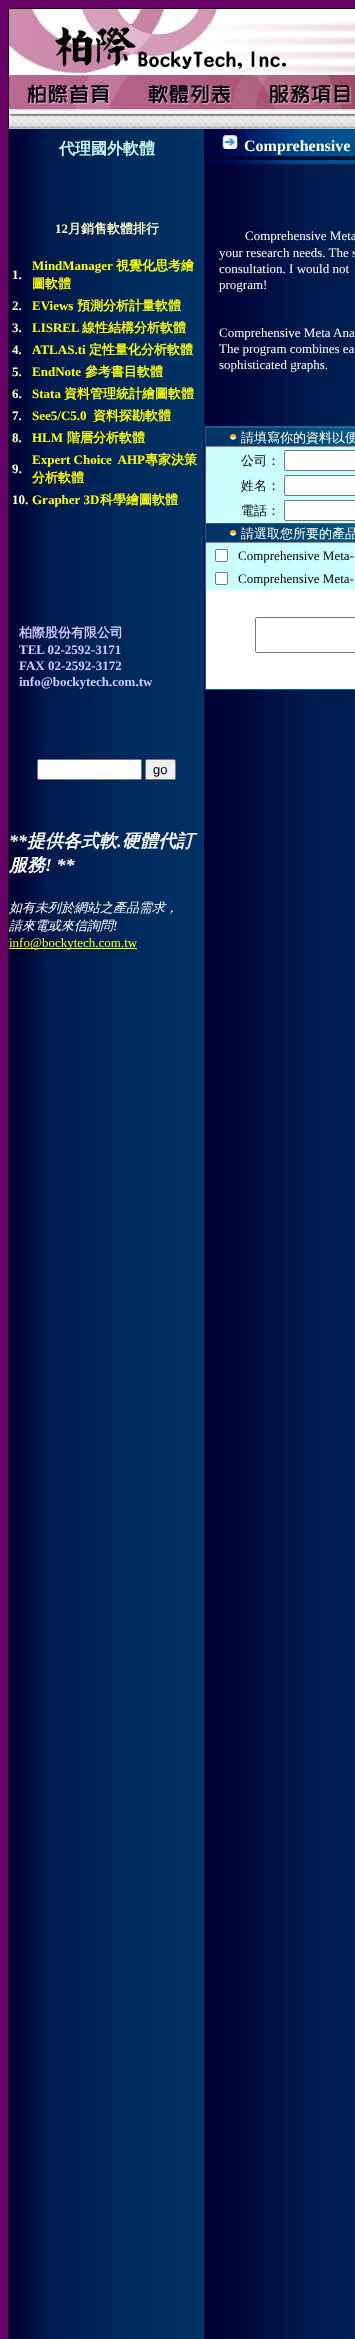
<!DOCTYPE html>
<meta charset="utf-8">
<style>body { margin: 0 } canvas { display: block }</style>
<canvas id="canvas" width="355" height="2339"></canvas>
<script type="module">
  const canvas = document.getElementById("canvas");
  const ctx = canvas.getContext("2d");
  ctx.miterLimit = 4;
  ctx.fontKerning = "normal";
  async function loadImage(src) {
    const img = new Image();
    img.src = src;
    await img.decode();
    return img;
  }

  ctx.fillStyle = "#660066";
  ctx.fillRect(0, 0, 355, 2339);
  ctx.fillStyle = "#111111";
  ctx.fillRect(8, 8, 347, 1);
  ctx.fillRect(8, 8, 1, 2331);
  ctx.drawImage(await loadImage("img1.png"), 9, 9, 346, 66);
  ctx.drawImage(await loadImage("img2.png"), 9, 75, 120, 34);
  ctx.drawImage(await loadImage("img3.png"), 129, 75, 120, 34);
  ctx.drawImage(await loadImage("img4.png"), 249, 75, 106, 34);
  ctx.drawImage(await loadImage("img5.png"), 9, 109, 346, 20);
  ctx.drawImage(await loadImage("img6.png"), 9, 129, 195, 2210);
  ctx.font = "bold 16px WenQuanYi Zen Hei";
  ctx.fillStyle = "#ccffff";
  ctx.fillText("代理國外軟體", 59, 154);
  ctx.font = "bold 13px Liberation Serif";
  ctx.fillStyle = "#ffffcc";
  ctx.fillText("12", 55, 233);
  ctx.font = "bold 13px WenQuanYi Zen Hei";
  ctx.fillText("月銷售軟體排行", 68, 233);
  ctx.font = "bold 13px Liberation Serif";
  ctx.fillText("1.", 12, 279);
  ctx.fillStyle = "#ffff00";
  ctx.fillText("MindManager", 32, 270);
  ctx.font = "bold 13px WenQuanYi Zen Hei";
  ctx.fillText("視覺化思考繪", 116, 270);
  ctx.fillText("圖軟體", 32, 288);
  ctx.font = "bold 13px Liberation Serif";
  ctx.fillStyle = "#ffffcc";
  ctx.fillText("2.", 12, 310);
  ctx.fillStyle = "#ffff00";
  ctx.fillText("EViews", 32, 310);
  ctx.font = "bold 13px WenQuanYi Zen Hei";
  ctx.fillText("預測分析計量軟體", 77, 310);
  ctx.font = "bold 13px Liberation Serif";
  ctx.fillStyle = "#ffffcc";
  ctx.fillText("3.", 12, 332);
  ctx.fillStyle = "#ffff00";
  ctx.fillText("LISREL", 32, 332);
  ctx.font = "bold 13px WenQuanYi Zen Hei";
  ctx.fillText("線性結構分析軟體", 82, 332);
  ctx.font = "bold 13px Liberation Serif";
  ctx.fillStyle = "#ffffcc";
  ctx.fillText("4.", 12, 354);
  ctx.fillStyle = "#ffff00";
  ctx.fillText("ATLAS.ti", 32, 354);
  ctx.font = "bold 13px WenQuanYi Zen Hei";
  ctx.fillText("定性量化分析軟體", 89, 354);
  ctx.font = "bold 13px Liberation Serif";
  ctx.fillStyle = "#ffffcc";
  ctx.fillText("5.", 12, 376);
  ctx.fillStyle = "#ffff00";
  ctx.fillText("EndNote", 32, 376);
  ctx.font = "bold 13px WenQuanYi Zen Hei";
  ctx.fillText("參考書目軟體", 85, 376);
  ctx.font = "bold 13px Liberation Serif";
  ctx.fillStyle = "#ffffcc";
  ctx.fillText("6.", 12, 398);
  ctx.fillStyle = "#ffff00";
  ctx.fillText("Stata", 32, 398);
  ctx.font = "bold 13px WenQuanYi Zen Hei";
  ctx.fillText("資料管理統計繪圖軟體", 64, 398);
  ctx.font = "bold 13px Liberation Serif";
  ctx.fillStyle = "#ffffcc";
  ctx.fillText("7.", 12, 420);
  ctx.fillStyle = "#ffff00";
  ctx.fillText("See5/C5.0", 32, 420);
  ctx.font = "bold 13px WenQuanYi Zen Hei";
  ctx.fillText("資料探勘軟體", 93, 420);
  ctx.font = "bold 13px Liberation Serif";
  ctx.fillStyle = "#ffffcc";
  ctx.fillText("8.", 12, 442);
  ctx.fillStyle = "#ffff00";
  ctx.fillText("HLM", 32, 442);
  ctx.font = "bold 13px WenQuanYi Zen Hei";
  ctx.fillText("階層分析軟體", 67, 442);
  ctx.font = "bold 13px Liberation Serif";
  ctx.fillStyle = "#ffffcc";
  ctx.fillText("9.", 12, 473);
  ctx.fillStyle = "#ffff00";
  ctx.fillText("Expert Choice  AHP", 32, 464);
  ctx.font = "bold 13px WenQuanYi Zen Hei";
  ctx.fillText("專家決策", 145, 464);
  ctx.fillText("分析軟體", 32, 482);
  ctx.font = "bold 13px Liberation Serif";
  ctx.fillStyle = "#ffffcc";
  ctx.fillText("10.", 12, 504);
  ctx.fillStyle = "#ffff00";
  ctx.fillText("Grapher 3D", 32, 504);
  ctx.font = "bold 13px WenQuanYi Zen Hei";
  ctx.fillText("科學繪圖軟體", 100, 504);
  ctx.fillStyle = "#ccccff";
  ctx.fillText("柏際股份有限公司", 19, 637);
  ctx.font = "bold 13px Liberation Serif";
  ctx.fillText("TEL 02-2592-3171", 19, 654);
  ctx.fillText("FAX 02-2592-3172", 19, 670);
  ctx.fillText("info@bockytech.com.tw", 19, 686);
  ctx.fillStyle = "#ffffff";
  ctx.beginPath();
  ctx.roundRect(37.5, 759.5, 104, 20, 1.5);
  ctx.fill();
  ctx.strokeStyle = "#767676";
  ctx.stroke();
  ctx.fillStyle = "#efefef";
  ctx.beginPath();
  ctx.roundRect(145.5, 759.5, 30, 20, 1.5);
  ctx.fill();
  ctx.stroke();
  ctx.font = "13px Liberation Sans";
  ctx.fillStyle = "#000000";
  ctx.fillText("go", 153, 774);
  ctx.font = "italic bold 18px Liberation Serif";
  ctx.fillStyle = "#ffffff";
  ctx.fillText("**", 9, 847);
  ctx.font = "italic bold 18px WenQuanYi Zen Hei";
  ctx.fillText("提供各式軟", 27, 847);
  ctx.fillText("硬體代訂", 122, 847);
  ctx.font = "italic bold 18px Liberation Serif";
  ctx.fillText(".", 117, 847);
  ctx.font = "italic bold 18px WenQuanYi Zen Hei";
  ctx.fillText("服務", 9, 871);
  ctx.font = "italic bold 18px Liberation Serif";
  ctx.fillText("! **", 45, 871);
  ctx.font = "italic 500 13px WenQuanYi Zen Hei";
  ctx.fillText("如有未列於網站之產品需求，", 9, 912);
  ctx.fillText("請來電或來信詢問", 9, 930);
  ctx.font = "italic 13px Liberation Serif";
  ctx.fillText("!", 113, 930);
  ctx.fillStyle = "#ffff00";
  ctx.fillRect(9, 948, 128, 1);
  ctx.font = "13px Liberation Serif";
  ctx.fillText("info@bockytech.com.tw", 9, 947);
  ctx.drawImage(await loadImage("img7.png"), 204, 129, 151, 35);
  ctx.font = "bold 16px Liberation Serif";
  ctx.fillStyle = "#ffffff";
  ctx.fillText("Comprehensive", 244, 151);
  ctx.drawImage(await loadImage("img8.png"), 204, 164, 151, 2175);
  ctx.font = "13px Liberation Serif";
  ctx.fillText("Comprehensive Meta", 245, 240);
  ctx.fillText("your research needs. The s", 219, 257);
  ctx.fillText("consultation. I would not", 219, 273);
  ctx.fillText("program!", 219, 289);
  ctx.fillText("Comprehensive Meta", 219, 337);
  ctx.fillText("Ana", 333, 337);
  ctx.fillText("The program combines ea", 219, 353);
  ctx.fillText("sophisticated graphs.", 219, 369);
  ctx.fillStyle = "#0669a7";
  ctx.fillRect(205, 426, 150, 1);
  ctx.fillRect(205, 689, 150, 1);
  ctx.fillRect(205, 426, 1, 264);
  ctx.drawImage(await loadImage("img9.png"), 206, 427, 149, 21);
  ctx.font = "500 13px WenQuanYi Zen Hei";
  ctx.fillStyle = "#ffffff";
  ctx.fillText("請填寫你的資料以便", 241, 442);
  ctx.fillStyle = "#ccffff";
  ctx.fillRect(206, 448, 149, 25);
  ctx.fillStyle = "#000000";
  ctx.fillText("公司：", 241, 465);
  ctx.fillStyle = "#ffffff";
  ctx.beginPath();
  ctx.roundRect(284.5, 450.5, 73, 20, 1.5);
  ctx.fill();
  ctx.stroke();
  ctx.fillStyle = "#ccffff";
  ctx.fillRect(206, 473, 149, 25);
  ctx.fillStyle = "#000000";
  ctx.fillText("姓名：", 241, 490);
  ctx.fillStyle = "#ffffff";
  ctx.beginPath();
  ctx.roundRect(284.5, 475.5, 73, 20, 1.5);
  ctx.fill();
  ctx.stroke();
  ctx.fillStyle = "#ccffff";
  ctx.fillRect(206, 498, 149, 25);
  ctx.fillStyle = "#000000";
  ctx.fillText("電話：", 241, 515);
  ctx.fillStyle = "#ffffff";
  ctx.beginPath();
  ctx.roundRect(284.5, 500.5, 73, 20, 1.5);
  ctx.fill();
  ctx.stroke();
  ctx.drawImage(await loadImage("img9.png"), 206, 523, 149, 21);
  ctx.fillText("請選取您所要的產品", 241, 538);
  ctx.fillStyle = "#ccffff";
  ctx.fillRect(206, 544, 149, 23);
  ctx.fillStyle = "#ffffff";
  ctx.beginPath();
  ctx.roundRect(215.5, 549.5, 12, 12, 1.5);
  ctx.fill();
  ctx.stroke();
  ctx.font = "13px Liberation Serif";
  ctx.fillStyle = "#000000";
  ctx.fillText("Comprehensive Meta-", 238, 560);
  ctx.fillStyle = "#ccffff";
  ctx.fillRect(206, 567, 149, 23);
  ctx.fillStyle = "#ffffff";
  ctx.beginPath();
  ctx.roundRect(215.5, 572.5, 12, 12, 1.5);
  ctx.fill();
  ctx.stroke();
  ctx.fillStyle = "#000000";
  ctx.fillText("Comprehensive Meta-", 238, 583);
  ctx.fillStyle = "#ffffff";
  ctx.fillRect(206, 590, 149, 99);
  ctx.beginPath();
  ctx.roundRect(255.5, 617.5, 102, 35, 1.5);
  ctx.stroke();
</script>
